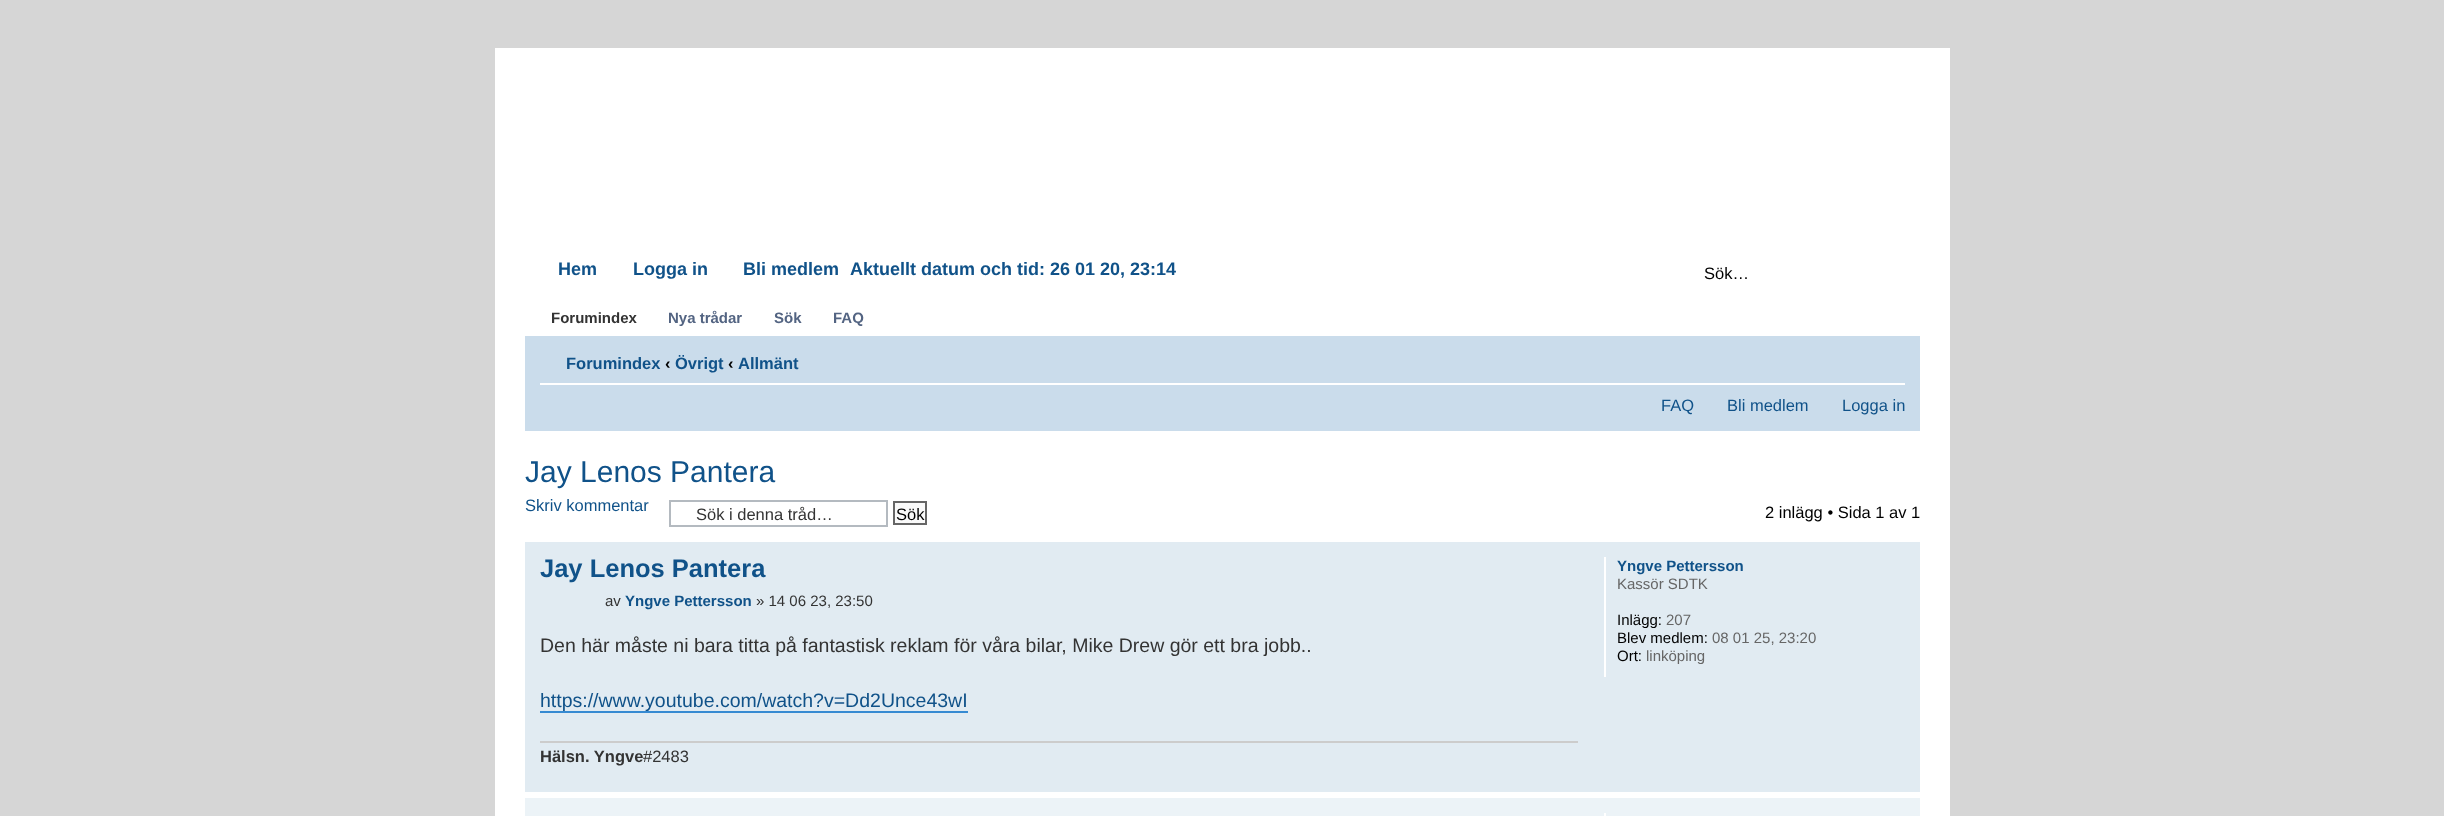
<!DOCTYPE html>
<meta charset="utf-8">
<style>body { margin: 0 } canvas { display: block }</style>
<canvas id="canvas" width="2444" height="816"></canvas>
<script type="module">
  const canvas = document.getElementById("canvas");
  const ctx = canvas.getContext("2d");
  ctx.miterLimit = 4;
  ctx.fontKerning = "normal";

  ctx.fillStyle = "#d6d6d6";
  ctx.fillRect(0, 0, 2444, 816);
  ctx.fillStyle = "#ffffff";
  ctx.fillRect(495, 48, 1455, 768);
  ctx.font = "bold 18px Liberation Sans";
  ctx.fillStyle = "#105289";
  ctx.fillText("Hem", 558, 275);
  ctx.fillText("Logga in", 633, 275);
  ctx.fillText("Bli medlem", 743, 275);
  ctx.fillText("Aktuellt datum och tid: 26 01 20, 23:14", 850, 275);
  ctx.font = "16.5px Liberation Sans";
  ctx.fillStyle = "#000000";
  ctx.fillText("Sök…", 1704, 279);
  ctx.font = "bold 15px Liberation Sans";
  ctx.fillStyle = "#333333";
  ctx.fillText("Forumindex", 551, 323);
  ctx.fillStyle = "#536482";
  ctx.fillText("Nya trådar", 668, 323);
  ctx.fillText("Sök", 774, 323);
  ctx.fillText("FAQ", 833, 323);
  ctx.fillStyle = "#cadceb";
  ctx.fillRect(525, 336, 1395, 95);
  ctx.fillStyle = "#ffffff";
  ctx.fillRect(540, 383, 1365, 2);
  ctx.font = "bold 16.5px Liberation Sans";
  ctx.fillStyle = "#105289";
  ctx.fillText("Forumindex", 566, 369);
  ctx.fillStyle = "#000000";
  ctx.fillText("‹", 665, 369);
  ctx.fillStyle = "#105289";
  ctx.fillText("Övrigt", 675, 369);
  ctx.fillStyle = "#000000";
  ctx.fillText("‹", 728, 369);
  ctx.fillStyle = "#105289";
  ctx.fillText("Allmänt", 738, 369);
  ctx.font = "16.5px Liberation Sans";
  ctx.fillText("FAQ", 1661, 411);
  ctx.fillText("Bli medlem", 1727, 411);
  ctx.fillText("Logga in", 1842, 411);
  ctx.font = "30px Liberation Sans";
  ctx.fillText("Jay Lenos Pantera", 525, 482);
  ctx.font = "16.5px Liberation Sans";
  ctx.fillText("Skriv kommentar", 525, 511);
  ctx.strokeStyle = "#b4bac0";
  ctx.lineWidth = 2;
  ctx.strokeRect(670, 501, 217, 25);
  ctx.fillStyle = "#333333";
  ctx.fillText("Sök i denna tråd…", 696, 520);
  ctx.fillStyle = "#fafafa";
  ctx.beginPath();
  ctx.rect(894, 502, 32, 22);
  ctx.fill();
  ctx.strokeStyle = "#666666";
  ctx.stroke();
  ctx.fillStyle = "#000000";
  ctx.fillText("Sök", 896, 520);
  ctx.fillText("2 inlägg • Sida 1 av 1", 1765, 518);
  ctx.fillStyle = "#e1ebf2";
  ctx.fillRect(525, 542, 1395, 250);
  ctx.font = "bold 25.5px Liberation Sans";
  ctx.fillStyle = "#105289";
  ctx.fillText("Jay Lenos Pantera", 540, 577);
  ctx.font = "15px Liberation Sans";
  ctx.fillStyle = "#333333";
  ctx.fillText("av", 605, 606);
  ctx.font = "bold 15px Liberation Sans";
  ctx.fillStyle = "#105289";
  ctx.fillText("Yngve Pettersson", 625, 606);
  ctx.font = "15px Liberation Sans";
  ctx.fillStyle = "#333333";
  ctx.fillText("» 14 06 23, 23:50", 756, 606);
  ctx.font = "19.5px Liberation Sans";
  ctx.fillText("Den här måste ni bara titta på fantastisk reklam för våra bilar, Mike Drew gör ett bra jobb..", 540, 652);
  ctx.fillStyle = "#368ad2";
  ctx.fillRect(540, 711, 428, 2);
  ctx.fillStyle = "#105289";
  ctx.fillText("https://www.youtube.com/watch?v=Dd2Unce43wI", 540, 707);
  ctx.fillStyle = "#cccccc";
  ctx.fillRect(540, 741, 1038, 2);
  ctx.font = "bold 16.5px Liberation Sans";
  ctx.fillStyle = "#333333";
  ctx.fillText("Hälsn. Yngve", 540, 762);
  ctx.font = "16.5px Liberation Sans";
  ctx.fillText("#2483", 643, 762);
  ctx.fillStyle = "#ffffff";
  ctx.fillRect(1604, 557, 2, 120);
  ctx.font = "bold 15px Liberation Sans";
  ctx.fillStyle = "#105289";
  ctx.fillText("Yngve Pettersson", 1617, 571);
  ctx.font = "15px Liberation Sans";
  ctx.fillStyle = "#666666";
  ctx.fillText("Kassör SDTK", 1617, 589);
  ctx.fillStyle = "#000000";
  ctx.fillText("Inlägg:", 1617, 625);
  ctx.fillStyle = "#666666";
  ctx.fillText("207", 1666, 625);
  ctx.fillStyle = "#000000";
  ctx.fillText("Blev medlem:", 1617, 643);
  ctx.fillStyle = "#666666";
  ctx.fillText("08 01 25, 23:20", 1712, 643);
  ctx.fillStyle = "#000000";
  ctx.fillText("Ort:", 1617, 661);
  ctx.fillStyle = "#666666";
  ctx.fillText("linköping", 1646, 661);
  ctx.fillStyle = "#ecf3f7";
  ctx.fillRect(525, 798, 1395, 18);
  ctx.fillStyle = "#ffffff";
  ctx.fillRect(1604, 813, 2, 3);
</script>
